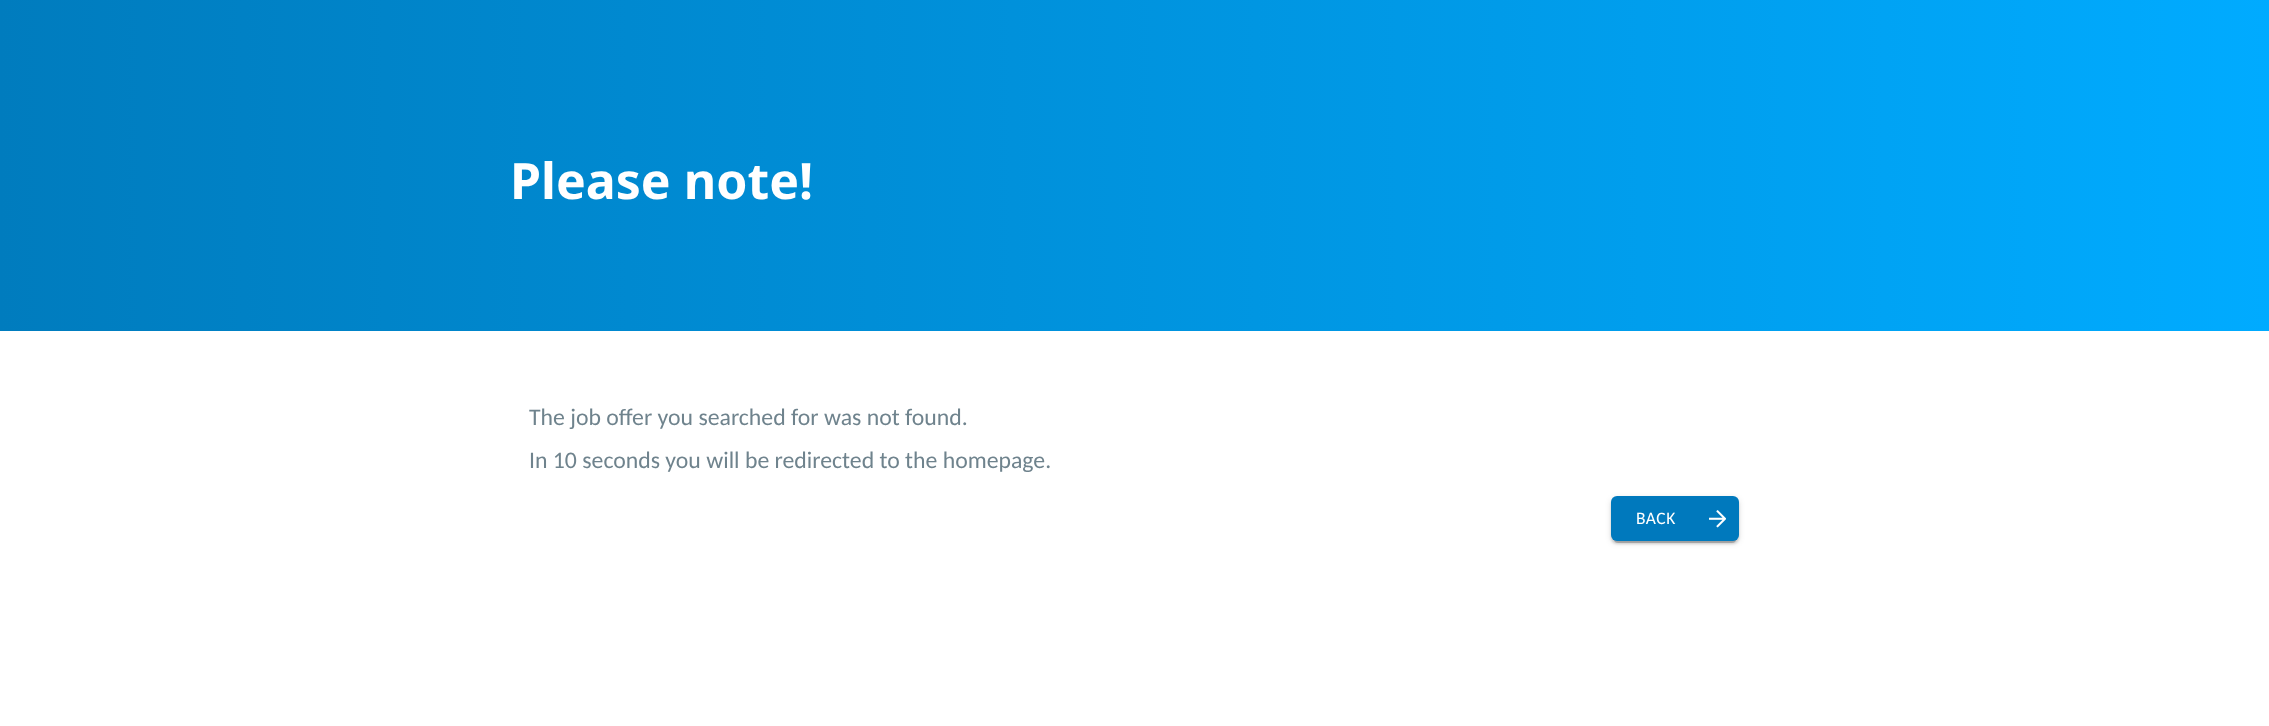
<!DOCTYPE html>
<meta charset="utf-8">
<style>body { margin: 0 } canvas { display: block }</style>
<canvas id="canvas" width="2269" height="726"></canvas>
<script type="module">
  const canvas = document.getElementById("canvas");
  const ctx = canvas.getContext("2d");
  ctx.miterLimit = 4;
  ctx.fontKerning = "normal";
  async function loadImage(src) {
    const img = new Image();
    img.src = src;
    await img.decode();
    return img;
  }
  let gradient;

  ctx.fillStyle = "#ffffff";
  ctx.fillRect(0, 0, 2269, 726);
  gradient = ctx.createLinearGradient(0, 166, 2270, 166);
  gradient.addColorStop(0, "#007cbe");
  gradient.addColorStop(1, "#00abff");
  ctx.fillStyle = gradient;
  ctx.fillRect(0, 0, 2269, 331);
  ctx.font = "bold 50px Noto Sans";
  ctx.fillStyle = "#ffffff";
  ctx.fillText("Please note!", 510, 199);
  ctx.font = "23.75px Carlito";
  ctx.fillStyle = "#6f838d";
  ctx.fillText("The job offer you searched for was not found.", 529, 425);
  ctx.fillText("In 10 seconds you will be redirected to the homepage.", 529, 468);
  ctx.fillStyle = "rgba(0, 0, 0, 0.2)";
  ctx.filter = "blur(0.5px)";
  ctx.beginPath();
  ctx.roundRect(1614, 503, 122, 40, 4);
  ctx.fill();
  ctx.filter = "none";
  ctx.fillStyle = "rgba(0, 0, 0, 0.12)";
  ctx.filter = "blur(3px)";
  ctx.beginPath();
  ctx.roundRect(1611, 498, 128, 45, 6);
  ctx.fill();
  ctx.filter = "none";
  ctx.fillStyle = "rgba(0, 0, 0, 0.14)";
  ctx.filter = "blur(1px)";
  ctx.beginPath();
  ctx.roundRect(1611, 499, 128, 45, 6);
  ctx.fill();
  ctx.filter = "none";
  ctx.fillStyle = "#0079bd";
  ctx.beginPath();
  ctx.roundRect(1611, 496, 128, 45, 6);
  ctx.fill();
  ctx.drawImage(await loadImage("img1.png"), 1709, 510, 17, 18);
  ctx.letterSpacing = "0.5px";
  ctx.font = "17.5px Carlito";
  ctx.fillStyle = "#ffffff";
  ctx.fillText("BACK", 1636, 524);
</script>
